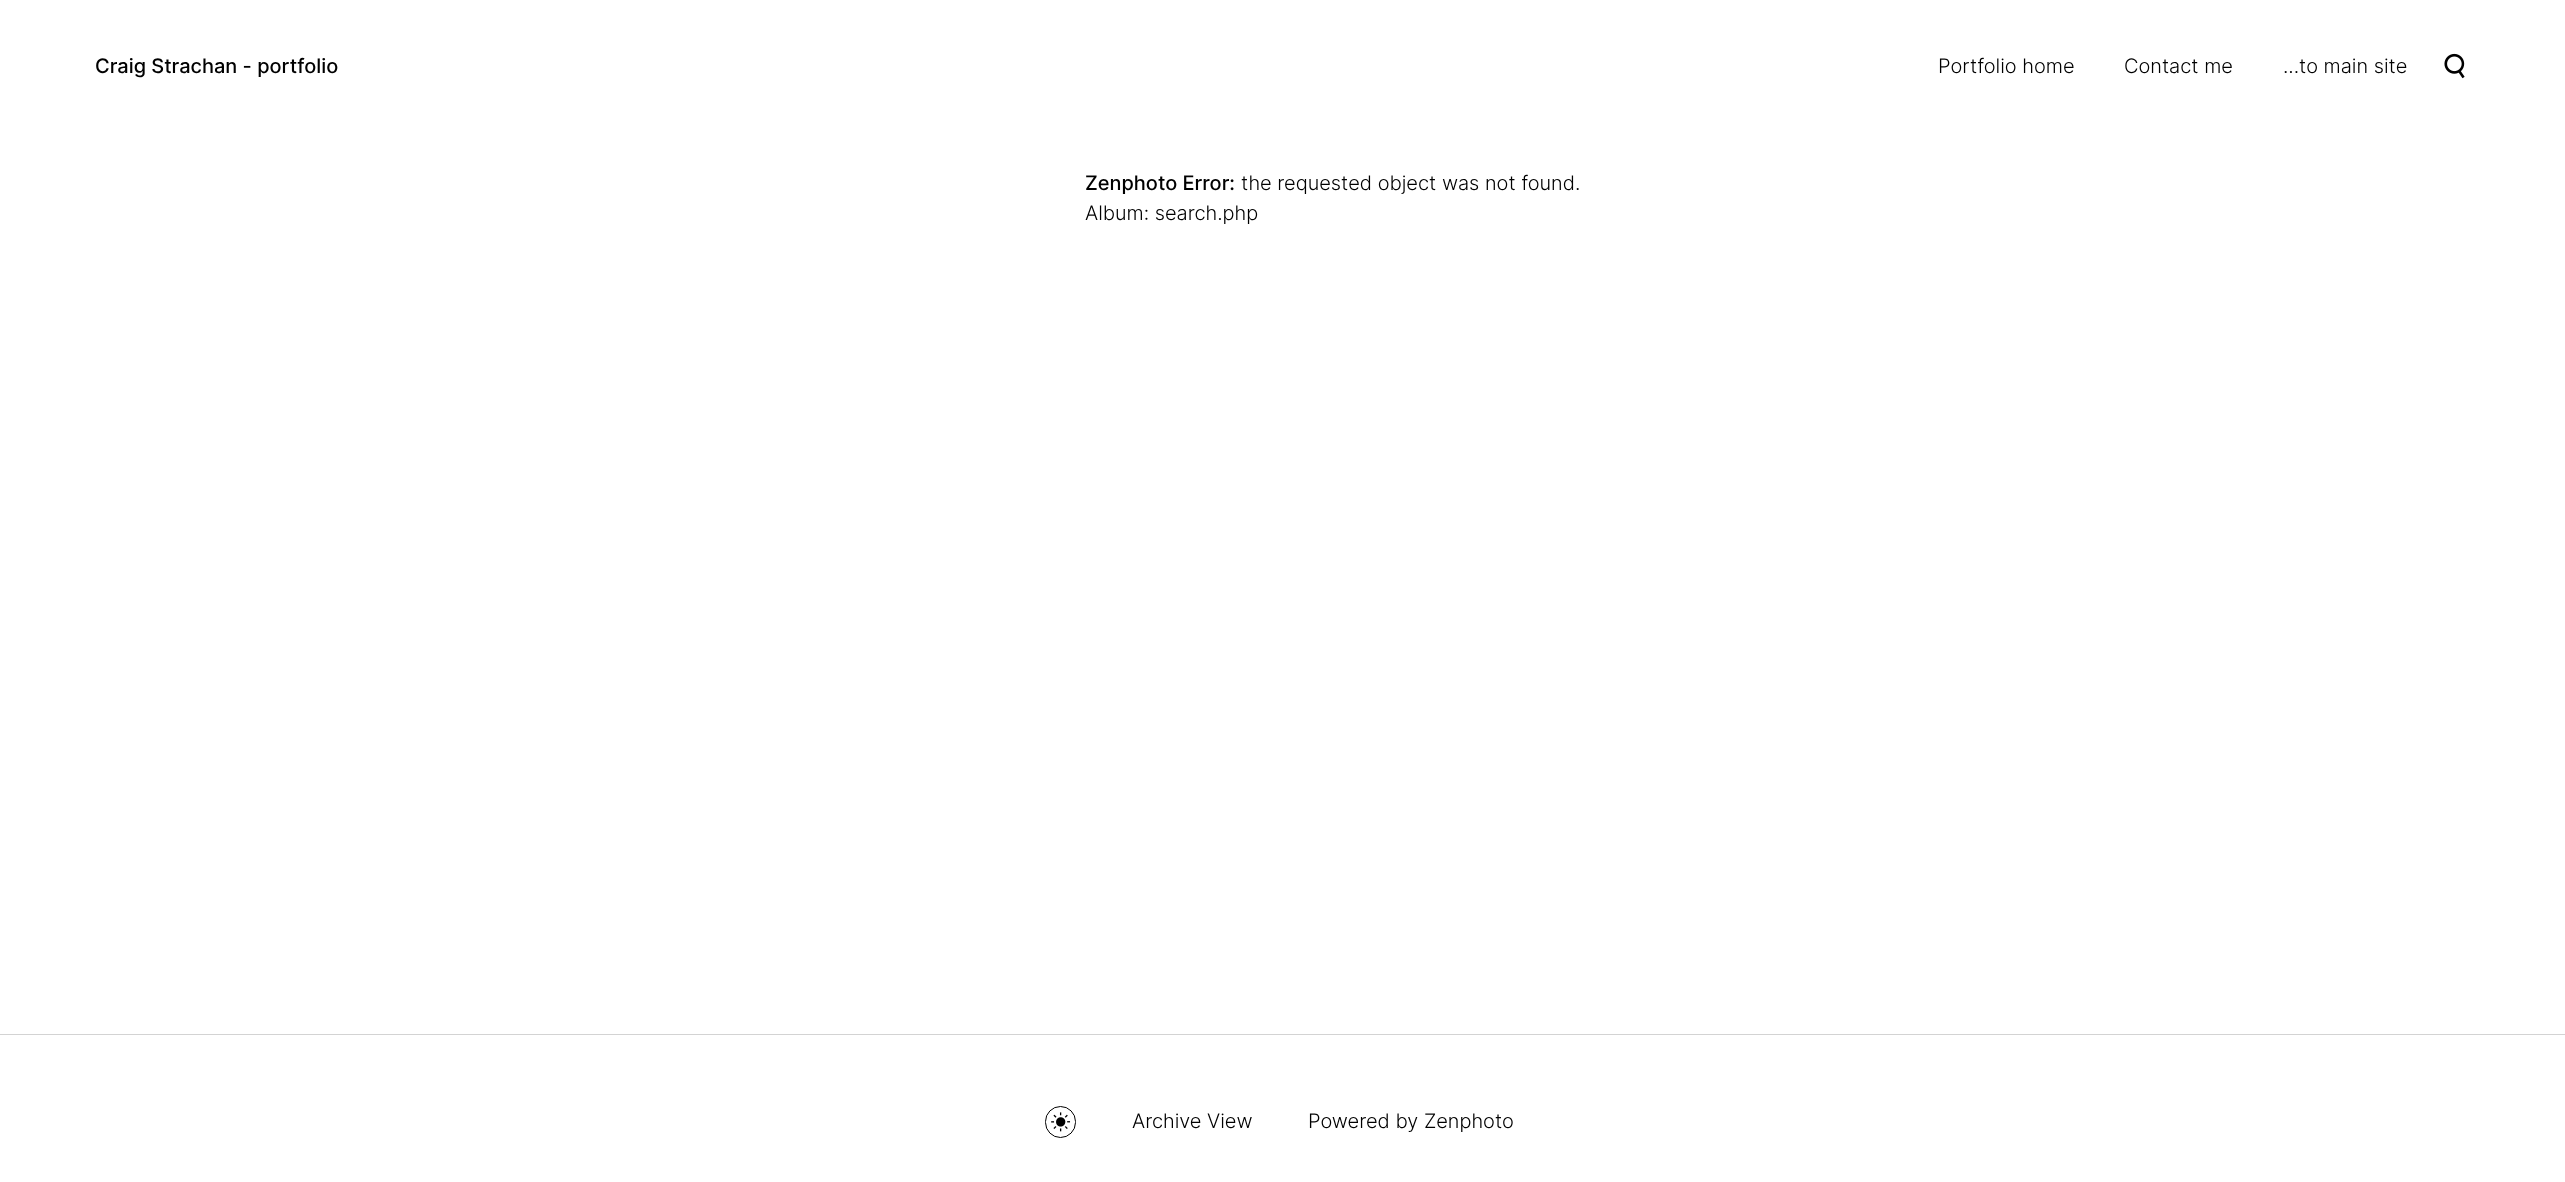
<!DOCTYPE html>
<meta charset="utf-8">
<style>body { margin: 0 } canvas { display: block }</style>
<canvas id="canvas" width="2565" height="1182"></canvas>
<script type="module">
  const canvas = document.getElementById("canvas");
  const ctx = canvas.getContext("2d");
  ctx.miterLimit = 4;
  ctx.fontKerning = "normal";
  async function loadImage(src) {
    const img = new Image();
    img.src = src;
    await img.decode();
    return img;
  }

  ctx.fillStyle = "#ffffff";
  ctx.fillRect(0, 0, 2565, 1182);
  ctx.font = "500 20px Inter";
  ctx.fillStyle = "#000000";
  ctx.fillText("Craig Strachan - portfolio", 95, 73);
  ctx.font = "300 20px Inter";
  ctx.fillText("Portfolio home", 1938, 73);
  ctx.fillText("Contact me", 2124, 73);
  ctx.fillText("...to main site", 2283, 73);
  ctx.drawImage(await loadImage("img1.png"), 2444, 53, 21, 26);
  ctx.font = "500 20px Inter";
  ctx.fillText("Zenphoto Error:", 1085, 190);
  ctx.font = "300 20px Inter";
  ctx.fillText("the requested object was not found.", 1241, 190);
  ctx.fillText("Album: search.php", 1085, 220);
  ctx.fillStyle = "#d3d3d3";
  ctx.fillRect(0, 1034, 2565, 1);
  ctx.drawImage(await loadImage("img2.png"), 1051, 1112, 20, 20);
  ctx.beginPath();
  ctx.roundRect(1045.5, 1106.5, 30, 31, 15);
  ctx.strokeStyle = "#000000";
  ctx.stroke();
  ctx.fillStyle = "#000000";
  ctx.fillText("Archive View", 1132, 1128);
  ctx.fillText("Powered by Zenphoto", 1308, 1128);
</script>
